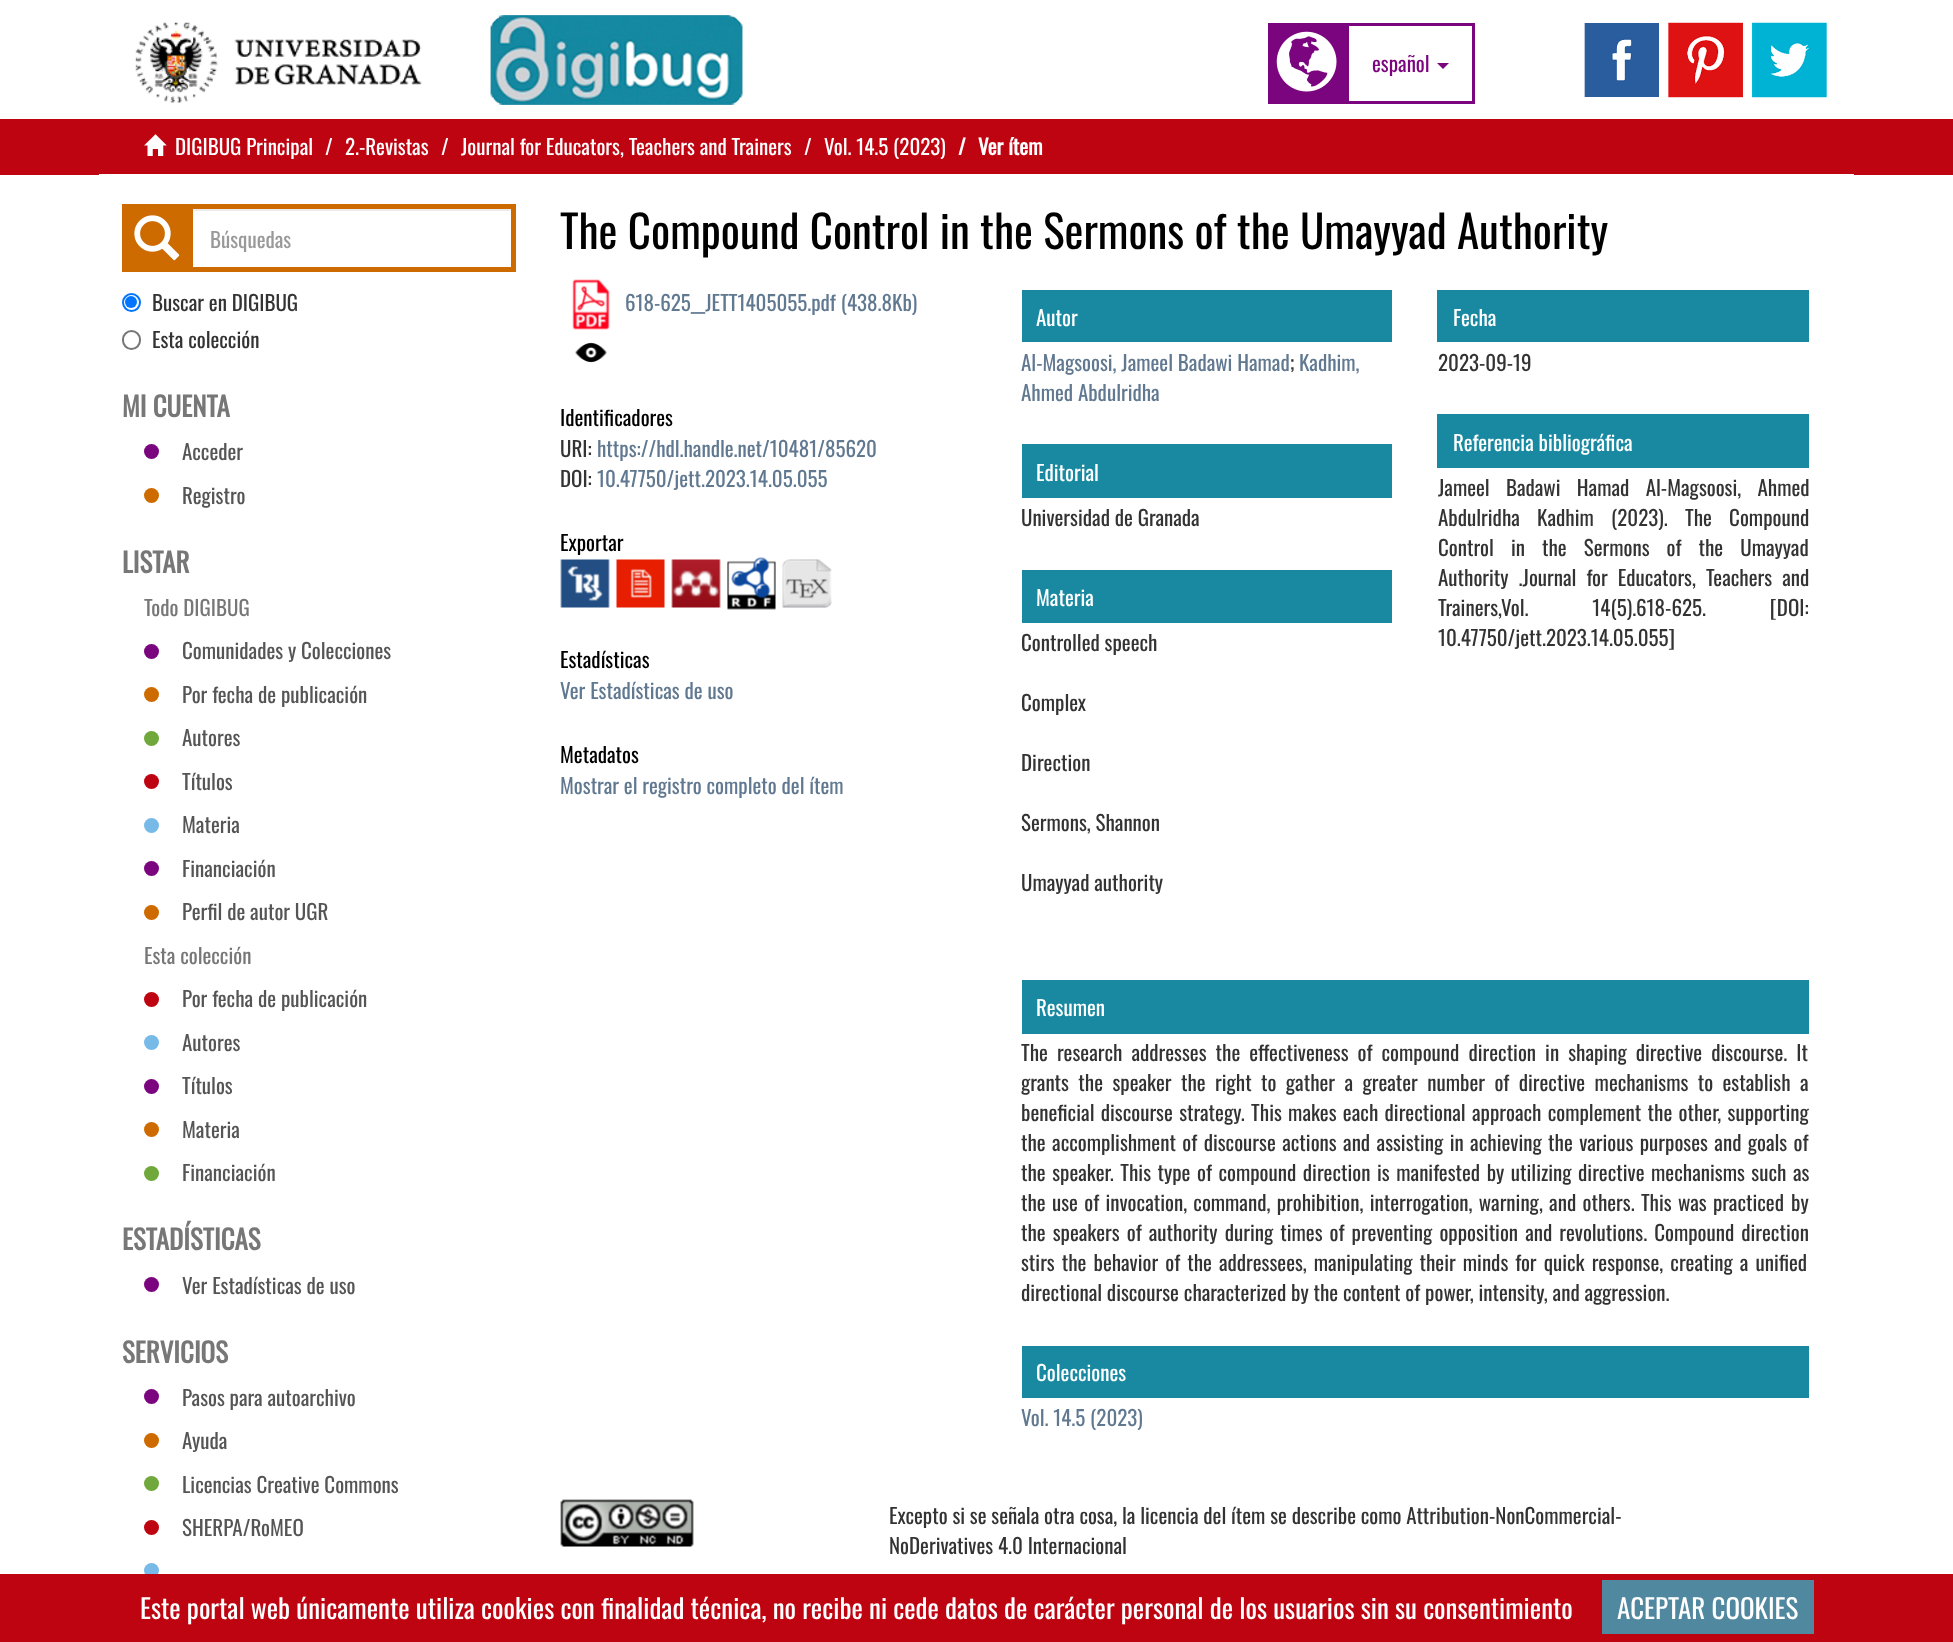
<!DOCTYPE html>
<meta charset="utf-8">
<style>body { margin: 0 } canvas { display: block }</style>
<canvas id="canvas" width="1953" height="1642"></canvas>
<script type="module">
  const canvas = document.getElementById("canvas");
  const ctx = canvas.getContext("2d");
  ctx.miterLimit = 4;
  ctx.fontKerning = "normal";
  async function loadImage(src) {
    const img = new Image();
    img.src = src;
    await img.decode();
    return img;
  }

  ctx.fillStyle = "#ffffff";
  ctx.fillRect(0, 0, 1953, 1642);
  ctx.drawImage(await loadImage("img1.png"), 135, 22, 287, 81);
  ctx.drawImage(await loadImage("img2.png"), 490, 15, 253, 90);
  ctx.fillStyle = "#7b057e";
  ctx.fillRect(1268, 23, 78, 81);
  ctx.drawImage(await loadImage("img3.png"), 1276, 31, 61, 61);
  ctx.strokeStyle = "#7b057e";
  ctx.lineWidth = 3;
  ctx.strokeRect(1347.5, 24.5, 126, 78);
  ctx.font = "21px Oswald";
  ctx.fillText("español", 1372, 72);
  ctx.beginPath();
  ctx.moveTo(1437, 63);
  ctx.lineTo(1449, 63);
  ctx.lineTo(1443, 69);
  ctx.closePath();
  ctx.fill();
  ctx.drawImage(await loadImage("img4.png"), 1584, 23, 75, 74);
  ctx.drawImage(await loadImage("img5.png"), 1668, 22, 75, 76);
  ctx.drawImage(await loadImage("img6.png"), 1752, 22, 75, 76);
  ctx.fillStyle = "#bf0411";
  ctx.fillRect(0, 119, 1953, 56);
  ctx.drawImage(await loadImage("img7.png"), 144, 134, 23, 22);
  ctx.fillStyle = "#ffffff";
  ctx.fillText("DIGIBUG Principal", 175, 155);
  ctx.fillText("/", 325, 155);
  ctx.fillText("2.-Revistas", 345, 155);
  ctx.fillText("/", 441, 155);
  ctx.fillText("Journal for Educators, Teachers and Trainers", 461, 155);
  ctx.fillText("/", 804, 155);
  ctx.fillText("Vol. 14.5 (2023)", 824, 155);
  ctx.font = "bold 21px Oswald";
  ctx.fillText("/", 958, 155);
  ctx.fillText("Ver ítem", 978, 155);
  ctx.fillRect(99, 174, 1755, 1);
  ctx.fillStyle = "#ce6b00";
  ctx.fillRect(122, 204, 66, 68);
  ctx.drawImage(await loadImage("img8.png"), 134, 215, 46, 46);
  ctx.fillStyle = "#ececec";
  ctx.fillRect(192, 209, 320, 2);
  ctx.strokeStyle = "#ce6b00";
  ctx.lineWidth = 5;
  ctx.strokeRect(190.5, 206.5, 323, 63);
  ctx.font = "21px Oswald";
  ctx.fillStyle = "#999999";
  ctx.fillText("Búsquedas", 210, 248);
  ctx.beginPath();
  ctx.arc(131.5, 302.5, 8.5, 0, Math.PI * 2);
  ctx.strokeStyle = "#0075ff";
  ctx.lineWidth = 2;
  ctx.stroke();
  ctx.fillStyle = "#0075ff";
  ctx.beginPath();
  ctx.arc(131, 302, 6, 0, Math.PI * 2);
  ctx.fill();
  ctx.fillStyle = "#333333";
  ctx.fillText("Buscar en DIGIBUG", 152, 311);
  ctx.beginPath();
  ctx.roundRect(123, 331, 17, 18, 8.5);
  ctx.strokeStyle = "#767676";
  ctx.stroke();
  ctx.fillText("Esta colección", 152, 348);
  ctx.font = "bold 27px Oswald";
  ctx.fillStyle = "#777777";
  ctx.fillText("MI CUENTA", 122, 417);
  ctx.fillStyle = "#7b057e";
  ctx.beginPath();
  ctx.arc(151.5, 451.5, 7.5, 0, Math.PI * 2);
  ctx.fill();
  ctx.font = "21px Oswald";
  ctx.fillStyle = "#555555";
  ctx.fillText("Acceder", 182, 460);
  ctx.fillStyle = "#ce6b00";
  ctx.beginPath();
  ctx.arc(151.5, 495.5, 7.5, 0, Math.PI * 2);
  ctx.fill();
  ctx.fillStyle = "#555555";
  ctx.fillText("Registro", 182, 504);
  ctx.font = "bold 27px Oswald";
  ctx.fillStyle = "#777777";
  ctx.fillText("LISTAR", 122, 573);
  ctx.font = "21px Oswald";
  ctx.fillText("Todo DIGIBUG", 144, 616);
  ctx.fillStyle = "#7b057e";
  ctx.beginPath();
  ctx.arc(151.5, 651.5, 7.5, 0, Math.PI * 2);
  ctx.fill();
  ctx.fillStyle = "#555555";
  ctx.fillText("Comunidades y Colecciones", 182, 659);
  ctx.fillStyle = "#ce6b00";
  ctx.beginPath();
  ctx.arc(151.5, 694.5, 7.5, 0, Math.PI * 2);
  ctx.fill();
  ctx.fillStyle = "#555555";
  ctx.fillText("Por fecha de publicación", 182, 703);
  ctx.fillStyle = "#70a83b";
  ctx.beginPath();
  ctx.arc(151.5, 738.5, 7.5, 0, Math.PI * 2);
  ctx.fill();
  ctx.fillStyle = "#555555";
  ctx.fillText("Autores", 182, 746);
  ctx.fillStyle = "#bf0411";
  ctx.beginPath();
  ctx.arc(151.5, 781.5, 7.5, 0, Math.PI * 2);
  ctx.fill();
  ctx.fillStyle = "#555555";
  ctx.fillText("Títulos", 182, 790);
  ctx.fillStyle = "#77bae8";
  ctx.beginPath();
  ctx.arc(151.5, 825.5, 7.5, 0, Math.PI * 2);
  ctx.fill();
  ctx.fillStyle = "#555555";
  ctx.fillText("Materia", 182, 833);
  ctx.fillStyle = "#7b057e";
  ctx.beginPath();
  ctx.arc(151.5, 868.5, 7.5, 0, Math.PI * 2);
  ctx.fill();
  ctx.fillStyle = "#555555";
  ctx.fillText("Financiación", 182, 877);
  ctx.fillStyle = "#ce6b00";
  ctx.beginPath();
  ctx.arc(151.5, 912.5, 7.5, 0, Math.PI * 2);
  ctx.fill();
  ctx.fillStyle = "#555555";
  ctx.fillText("Perfil de autor UGR", 182, 920);
  ctx.fillStyle = "#777777";
  ctx.fillText("Esta colección", 144, 964);
  ctx.fillStyle = "#bf0411";
  ctx.beginPath();
  ctx.arc(151.5, 999.5, 7.5, 0, Math.PI * 2);
  ctx.fill();
  ctx.fillStyle = "#555555";
  ctx.fillText("Por fecha de publicación", 182, 1007);
  ctx.fillStyle = "#77bae8";
  ctx.beginPath();
  ctx.arc(151.5, 1042.5, 7.5, 0, Math.PI * 2);
  ctx.fill();
  ctx.fillStyle = "#555555";
  ctx.fillText("Autores", 182, 1051);
  ctx.fillStyle = "#7b057e";
  ctx.beginPath();
  ctx.arc(151.5, 1086.5, 7.5, 0, Math.PI * 2);
  ctx.fill();
  ctx.fillStyle = "#555555";
  ctx.fillText("Títulos", 182, 1094);
  ctx.fillStyle = "#ce6b00";
  ctx.beginPath();
  ctx.arc(151.5, 1129.5, 7.5, 0, Math.PI * 2);
  ctx.fill();
  ctx.fillStyle = "#555555";
  ctx.fillText("Materia", 182, 1138);
  ctx.fillStyle = "#70a83b";
  ctx.beginPath();
  ctx.arc(151.5, 1173.5, 7.5, 0, Math.PI * 2);
  ctx.fill();
  ctx.fillStyle = "#555555";
  ctx.fillText("Financiación", 182, 1181);
  ctx.font = "bold 27px Oswald";
  ctx.fillStyle = "#777777";
  ctx.fillText("ESTADÍSTICAS", 122, 1250);
  ctx.fillStyle = "#7b057e";
  ctx.beginPath();
  ctx.arc(151.5, 1284.5, 7.5, 0, Math.PI * 2);
  ctx.fill();
  ctx.font = "21px Oswald";
  ctx.fillStyle = "#555555";
  ctx.fillText("Ver Estadísticas de uso", 182, 1294);
  ctx.font = "bold 27px Oswald";
  ctx.fillStyle = "#777777";
  ctx.fillText("SERVICIOS", 122, 1363);
  ctx.fillStyle = "#7b057e";
  ctx.beginPath();
  ctx.arc(151.5, 1396.5, 7.5, 0, Math.PI * 2);
  ctx.fill();
  ctx.font = "21px Oswald";
  ctx.fillStyle = "#555555";
  ctx.fillText("Pasos para autoarchivo", 182, 1406);
  ctx.fillStyle = "#ce6b00";
  ctx.beginPath();
  ctx.arc(151.5, 1440.5, 7.5, 0, Math.PI * 2);
  ctx.fill();
  ctx.fillStyle = "#555555";
  ctx.fillText("Ayuda", 182, 1449);
  ctx.fillStyle = "#70a83b";
  ctx.beginPath();
  ctx.arc(151.5, 1483.5, 7.5, 0, Math.PI * 2);
  ctx.fill();
  ctx.fillStyle = "#555555";
  ctx.fillText("Licencias Creative Commons", 182, 1493);
  ctx.fillStyle = "#bf0411";
  ctx.beginPath();
  ctx.arc(151.5, 1527.5, 7.5, 0, Math.PI * 2);
  ctx.fill();
  ctx.fillStyle = "#555555";
  ctx.fillText("SHERPA/RoMEO", 182, 1536);
  ctx.fillStyle = "#77bae8";
  ctx.beginPath();
  ctx.arc(151.5, 1570.5, 7.5, 0, Math.PI * 2);
  ctx.fill();
  ctx.font = "45px Oswald";
  ctx.fillStyle = "#000000";
  ctx.fillText("The Compound Control in the Sermons of the Umayyad Authority", 560, 249);
  ctx.drawImage(await loadImage("img9.png"), 572, 279, 38, 51);
  ctx.font = "21px Oswald";
  ctx.fillStyle = "#607890";
  ctx.fillText("618-625__JETT1405055.pdf (438.8Kb)", 625, 311);
  ctx.drawImage(await loadImage("img10.png"), 575, 342, 32, 21);
  ctx.fillStyle = "#000000";
  ctx.fillText("Identificadores", 560, 426);
  ctx.fillStyle = "#333333";
  ctx.fillText("URI:", 560, 457);
  ctx.fillStyle = "#607890";
  ctx.fillText("https://hdl.handle.net/10481/85620", 597, 457);
  ctx.fillStyle = "#333333";
  ctx.fillText("DOI:", 560, 487);
  ctx.fillStyle = "#607890";
  ctx.fillText("10.47750/jett.2023.14.05.055", 597, 487);
  ctx.fillStyle = "#000000";
  ctx.fillText("Exportar", 560, 551);
  ctx.drawImage(await loadImage("img11.png"), 560, 559, 50, 49);
  ctx.drawImage(await loadImage("img12.png"), 616, 559, 49, 49);
  ctx.drawImage(await loadImage("img13.png"), 671, 559, 50, 49);
  ctx.drawImage(await loadImage("img14.png"), 727, 557, 49, 53);
  ctx.drawImage(await loadImage("img15.png"), 782, 559, 50, 49);
  ctx.fillText("Estadísticas", 560, 668);
  ctx.fillStyle = "#607890";
  ctx.fillText("Ver Estadísticas de uso", 560, 699);
  ctx.fillStyle = "#000000";
  ctx.fillText("Metadatos", 560, 763);
  ctx.fillStyle = "#607890";
  ctx.fillText("Mostrar el registro completo del ítem", 560, 794);
  ctx.fillStyle = "#1889a1";
  ctx.fillRect(1022, 290, 370, 52);
  ctx.fillStyle = "#ffffff";
  ctx.fillText("Autor", 1036, 326);
  ctx.fillStyle = "#607890";
  ctx.fillText("Al-Magsoosi, Jameel Badawi Hamad", 1021, 371);
  ctx.fillStyle = "#333333";
  ctx.fillText(";", 1290, 371);
  ctx.fillStyle = "#607890";
  ctx.fillText("Kadhim,", 1299, 371);
  ctx.fillText("Ahmed Abdulridha", 1021, 401);
  ctx.fillStyle = "#1889a1";
  ctx.fillRect(1022, 444, 370, 54);
  ctx.fillStyle = "#ffffff";
  ctx.fillText("Editorial", 1036, 481);
  ctx.fillStyle = "#333333";
  ctx.fillText("Universidad de Granada", 1021, 526);
  ctx.fillStyle = "#1889a1";
  ctx.fillRect(1022, 570, 370, 53);
  ctx.fillStyle = "#ffffff";
  ctx.fillText("Materia", 1036, 606);
  ctx.fillStyle = "#333333";
  ctx.fillText("Controlled speech", 1021, 651);
  ctx.fillText("Complex", 1021, 711);
  ctx.fillText("Direction", 1021, 771);
  ctx.fillText("Sermons, Shannon", 1021, 831);
  ctx.fillText("Umayyad authority", 1021, 891);
  ctx.fillStyle = "#1889a1";
  ctx.fillRect(1437, 290, 372, 52);
  ctx.fillStyle = "#ffffff";
  ctx.fillText("Fecha", 1453, 326);
  ctx.fillStyle = "#333333";
  ctx.fillText("2023-09-19", 1438, 371);
  ctx.fillStyle = "#1889a1";
  ctx.fillRect(1437, 414, 372, 54);
  ctx.fillStyle = "#ffffff";
  ctx.fillText("Referencia bibliográfica", 1453, 451);
  ctx.wordSpacing = "11.5px";
  ctx.fillStyle = "#333333";
  ctx.fillText("Jameel Badawi Hamad Al-Magsoosi, Ahmed", 1438, 496);
  ctx.wordSpacing = "12.5px";
  ctx.fillText("Abdulridha Kadhim (2023). The Compound", 1438, 526);
  ctx.wordSpacing = "12.25px";
  ctx.fillText("Control in the Sermons of the Umayyad", 1438, 556);
  ctx.wordSpacing = "5.25px";
  ctx.fillText("Authority .Journal for Educators, Teachers and", 1438, 586);
  ctx.wordSpacing = "59px";
  ctx.fillText("Trainers,Vol. 14(5).618-625. [DOI:", 1438, 616);
  ctx.wordSpacing = "0px";
  ctx.fillText("10.47750/jett.2023.14.05.055]", 1438, 646);
  ctx.fillStyle = "#1889a1";
  ctx.fillRect(1022, 980, 787, 54);
  ctx.fillStyle = "#ffffff";
  ctx.fillText("Resumen", 1036, 1016);
  ctx.wordSpacing = "4.25px";
  ctx.fillStyle = "#333333";
  ctx.fillText("The research addresses the effectiveness of compound direction in shaping directive discourse. It", 1021, 1061);
  ctx.wordSpacing = "4.6px";
  ctx.fillText("grants the speaker the right to gather a greater number of directive mechanisms to establish a", 1021, 1091);
  ctx.wordSpacing = "1.5px";
  ctx.fillText("beneficial discourse strategy. This makes each directional approach complement the other, supporting", 1021, 1121);
  ctx.wordSpacing = "1.6px";
  ctx.fillText("the accomplishment of discourse actions and assisting in achieving the various purposes and goals of", 1021, 1151);
  ctx.wordSpacing = "1.75px";
  ctx.fillText("the speaker. This type of compound direction is manifested by utilizing directive mechanisms such as", 1021, 1181);
  ctx.wordSpacing = "1.5px";
  ctx.fillText("the use of invocation, command, prohibition, interrogation, warning, and others. This was practiced", 1021, 1211);
  ctx.wordSpacing = "0px";
  ctx.fillText("by", 1791, 1211);
  ctx.wordSpacing = "2.25px";
  ctx.fillText("the speakers of authority during times of preventing opposition and revolutions. Compound direction", 1021, 1241);
  ctx.fillText("stirs the behavior of the addressees, manipulating their minds for quick response, creating a unified", 1021, 1271);
  ctx.wordSpacing = "0px";
  ctx.fillText("directional discourse characterized by the content of power, intensity, and aggression.", 1021, 1301);
  ctx.fillStyle = "#1889a1";
  ctx.fillRect(1022, 1346, 787, 52);
  ctx.fillStyle = "#ffffff";
  ctx.fillText("Colecciones", 1036, 1381);
  ctx.fillStyle = "#607890";
  ctx.fillText("Vol. 14.5 (2023)", 1021, 1426);
  ctx.drawImage(await loadImage("img16.png"), 560, 1499, 134, 48);
  ctx.fillStyle = "#333333";
  ctx.fillText("Excepto si se señala otra cosa, la licencia del ítem se describe como Attribution-NonCommercial-", 889, 1524);
  ctx.fillText("NoDerivatives 4.0 Internacional", 889, 1554);
  ctx.fillStyle = "#bf0411";
  ctx.fillRect(0, 1574, 1953, 68);
  ctx.font = "27px Oswald";
  ctx.fillStyle = "#ffffff";
  ctx.fillText("Este portal web únicamente utiliza cookies con finalidad técnica, no recibe ni cede datos de carácter personal de los usuarios sin su consentimiento", 140, 1619);
  ctx.fillStyle = "#5088a0";
  ctx.fillRect(1602, 1580, 212, 54);
  ctx.fillStyle = "#ffffff";
  ctx.fillText("ACEPTAR COOKIES", 1617, 1619);
</script>
